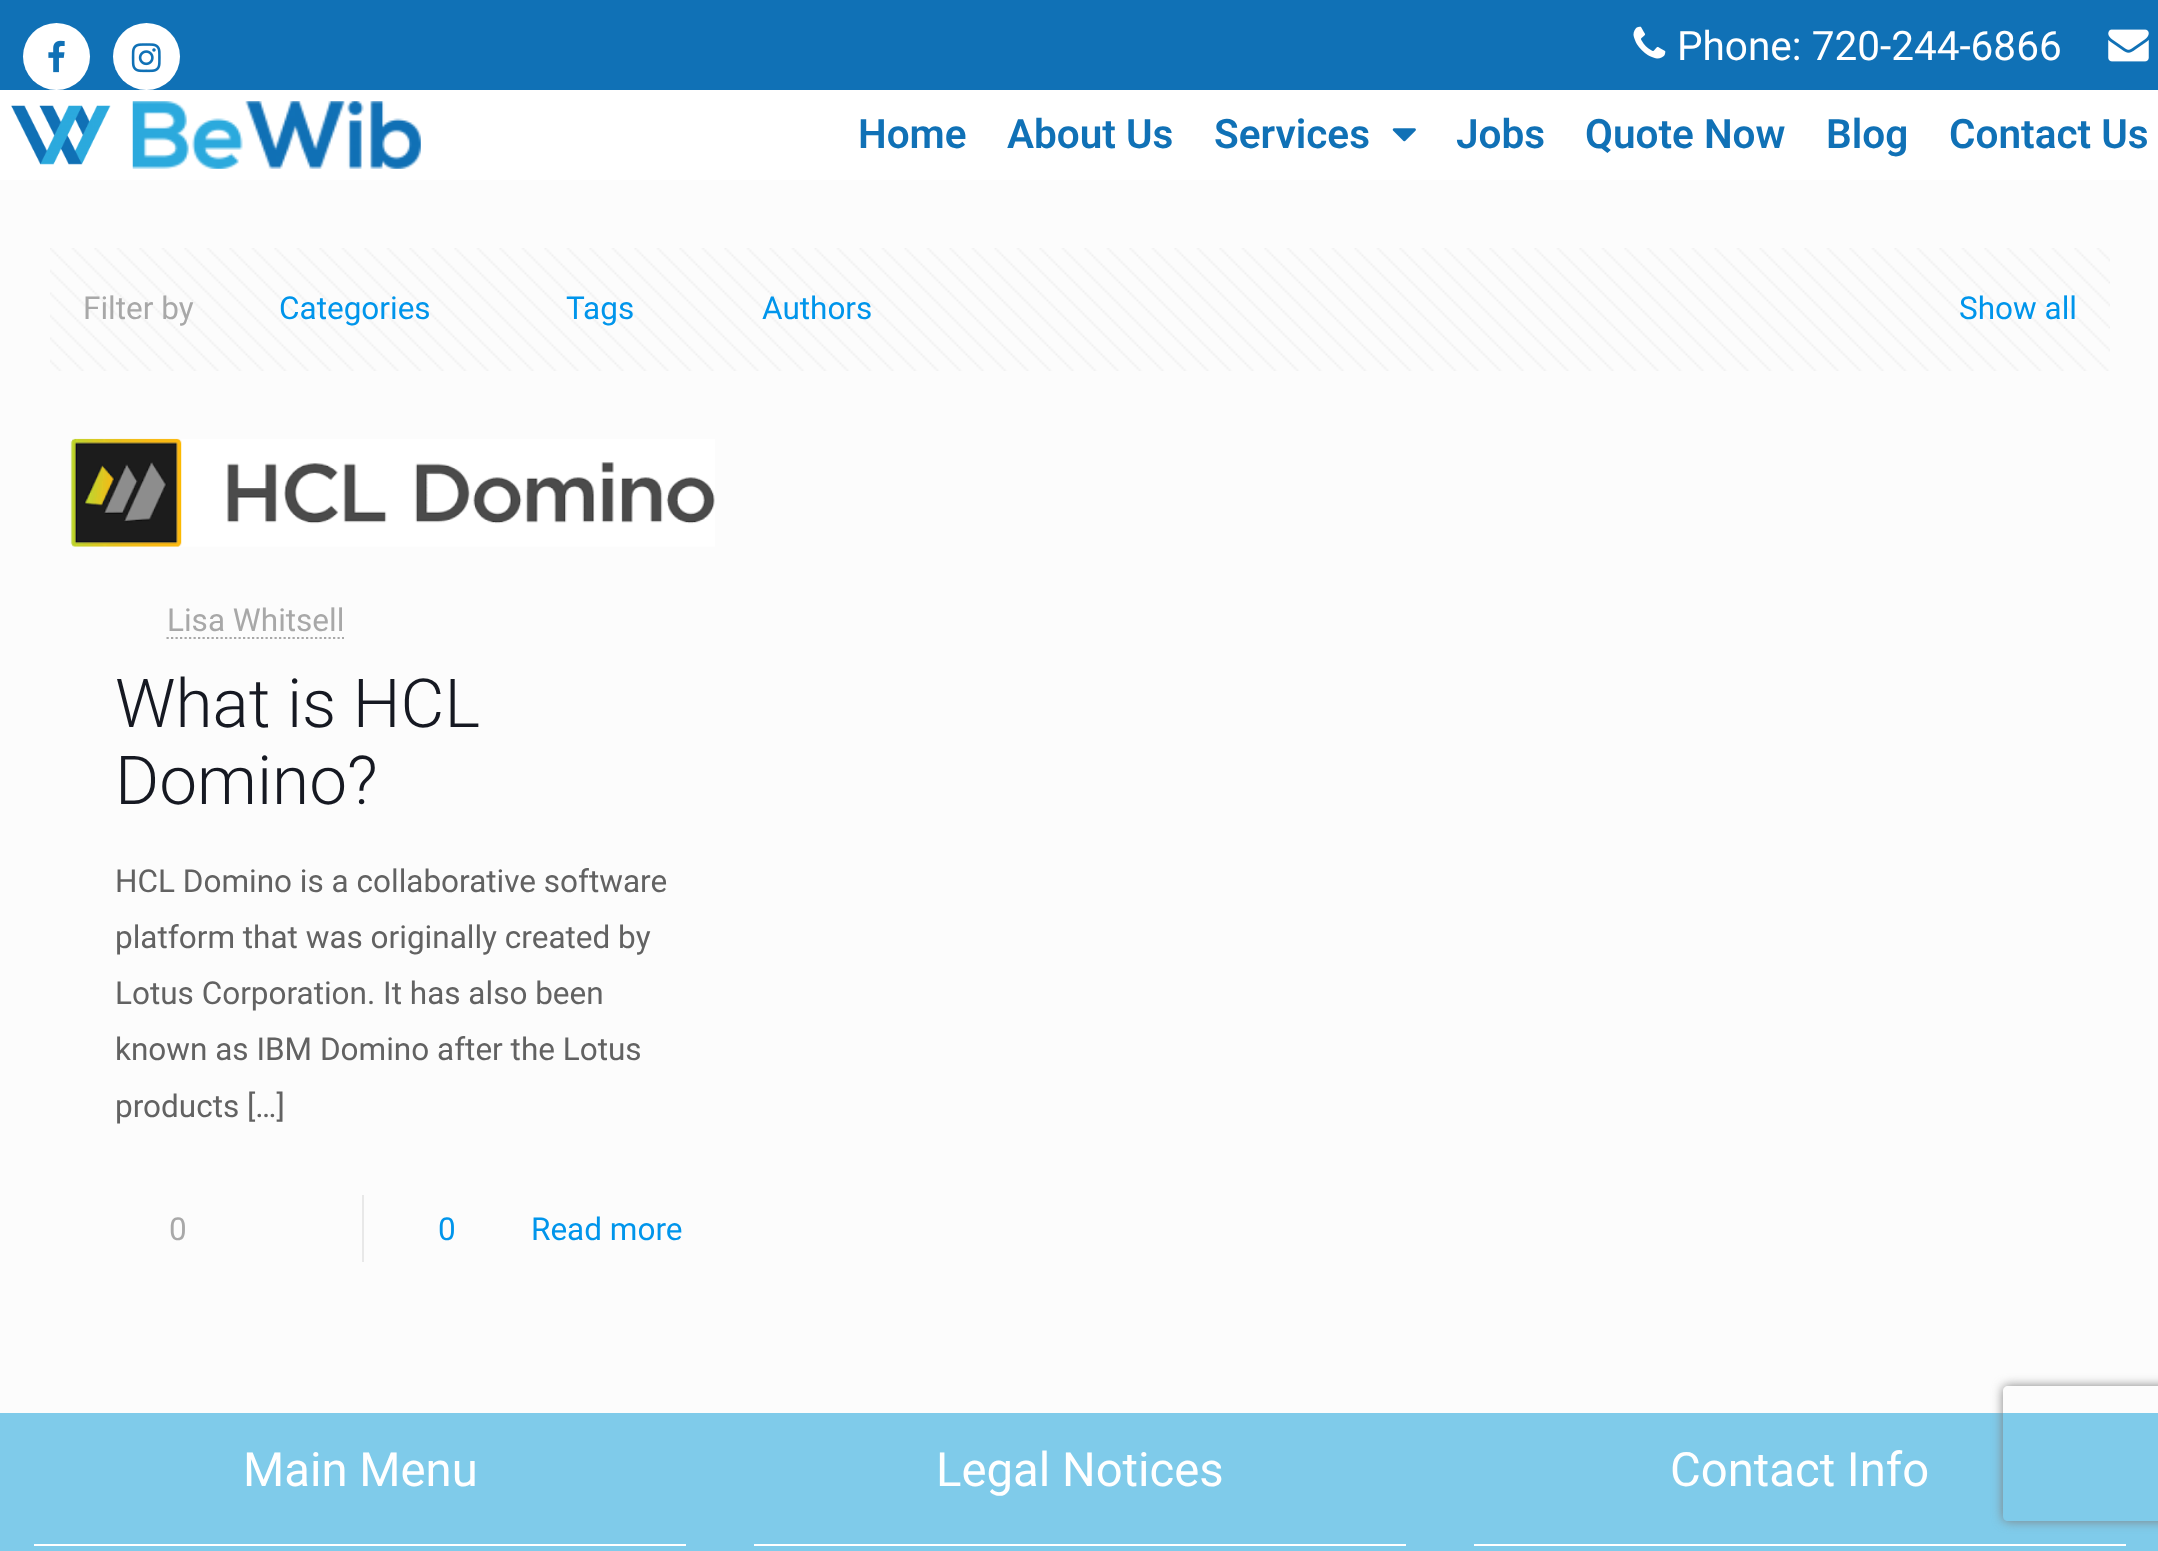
<!DOCTYPE html>
<meta charset="utf-8">
<style>body { margin: 0 } canvas { display: block }</style>
<canvas id="canvas" width="2158" height="1551"></canvas>
<script type="module">
  const canvas = document.getElementById("canvas");
  const ctx = canvas.getContext("2d");
  ctx.miterLimit = 4;
  ctx.fontKerning = "normal";
  async function loadImage(src) {
    const img = new Image();
    img.src = src;
    await img.decode();
    return img;
  }

  ctx.fillStyle = "#fcfcfc";
  ctx.fillRect(0, 0, 2158, 1551);
  ctx.fillStyle = "#1071b6";
  ctx.fillRect(0, 0, 2158, 90);
  ctx.fillStyle = "#ffffff";
  ctx.beginPath();
  ctx.arc(56.5, 56.5, 33.5, 0, Math.PI * 2);
  ctx.fill();
  ctx.drawImage(await loadImage("img1.png"), 48, 40, 17, 33);
  ctx.beginPath();
  ctx.arc(146.5, 56.5, 33.5, 0, Math.PI * 2);
  ctx.fill();
  ctx.drawImage(await loadImage("img2.png"), 131, 43, 30, 30);
  ctx.drawImage(await loadImage("img3.png"), 1633, 26, 33, 33);
  ctx.font = "40.5px Roboto";
  ctx.fillText("Phone: 720-244-6866", 1677, 60);
  ctx.drawImage(await loadImage("img4.png"), 2108, 29, 41, 33);
  ctx.fillRect(0, 90, 2158, 90);
  ctx.drawImage(await loadImage("img5.png"), 11, 105, 100, 60);
  ctx.drawImage(await loadImage("img6.png"), 132, 101, 289, 68);
  ctx.font = "600 40.5px Roboto";
  ctx.fillStyle = "#1071b6";
  ctx.fillText("Home", 858, 148);
  ctx.fillText("About Us", 1007, 148);
  ctx.fillText("Services", 1214, 148);
  ctx.drawImage(await loadImage("img7.png"), 1392, 128, 24, 14);
  ctx.fillText("Jobs", 1456, 148);
  ctx.fillText("Quote Now", 1585, 148);
  ctx.fillText("Blog", 1826, 148);
  ctx.fillText("Contact Us", 1949, 148);
  ctx.drawImage(await loadImage("img8.png"), 50, 248, 2060, 123);
  ctx.font = "31.5px Roboto";
  ctx.fillStyle = "#a8a8a8";
  ctx.fillText("Filter by", 83, 319);
  ctx.fillStyle = "#0095eb";
  ctx.fillText("Categories", 279, 319);
  ctx.fillText("Tags", 566, 319);
  ctx.fillText("Authors", 762, 319);
  ctx.fillText("Show all", 1959, 319);
  ctx.drawImage(await loadImage("img9.png"), 70, 438, 645, 109);
  ctx.fillStyle = "#a8a8a8";
  ctx.fillText("Lisa Whitsell", 167, 631);
  ctx.beginPath();
  ctx.moveTo(166.5, 638);
  ctx.lineTo(344, 638);
  ctx.strokeStyle = "#a8a8a8";
  ctx.lineWidth = 2.2;
  ctx.setLineDash([2.25, 2.25]);
  ctx.stroke();
  ctx.font = "300 67.5px Roboto";
  ctx.fillStyle = "#161922";
  ctx.fillText("What is HCL", 115, 727);
  ctx.fillText("Domino?", 115, 804);
  ctx.font = "31.5px Roboto";
  ctx.fillStyle = "#626262";
  ctx.fillText("HCL Domino is a collaborative software", 115, 892);
  ctx.fillText("platform that was originally created by", 115, 948);
  ctx.fillText("Lotus Corporation. It has also been", 115, 1004);
  ctx.fillText("known as IBM Domino after the Lotus", 115, 1060);
  ctx.fillText("products […]", 115, 1117);
  ctx.fillStyle = "#a8a8a8";
  ctx.fillText("0", 169, 1240);
  ctx.fillStyle = "#e8e8e8";
  ctx.fillRect(362, 1195, 2, 67);
  ctx.fillStyle = "#0095eb";
  ctx.fillText("0", 438, 1240);
  ctx.fillText("Read more", 531, 1240);
  ctx.fillStyle = "#7fcbea";
  ctx.fillRect(0, 1413, 2158, 138);
  ctx.font = "47.25px Roboto";
  ctx.fillStyle = "#ffffff";
  ctx.fillText("Main Menu", 243, 1486);
  ctx.fillRect(34, 1544, 652, 2);
  ctx.fillText("Legal Notices", 936, 1486);
  ctx.fillRect(754, 1544, 652, 2);
  ctx.fillText("Contact Info", 1670, 1486);
  ctx.fillRect(1474, 1544, 652, 2);
  ctx.save();
  ctx.beginPath();
  ctx.moveTo(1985, 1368);
  ctx.lineTo(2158, 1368);
  ctx.lineTo(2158, 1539);
  ctx.lineTo(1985, 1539);
  ctx.closePath();
  ctx.moveTo(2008, 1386);
  ctx.lineTo(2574, 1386);
  ctx.bezierCurveTo(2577, 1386, 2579, 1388, 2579, 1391);
  ctx.lineTo(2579, 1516);
  ctx.bezierCurveTo(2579, 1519, 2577, 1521, 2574, 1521);
  ctx.lineTo(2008, 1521);
  ctx.bezierCurveTo(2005, 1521, 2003, 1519, 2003, 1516);
  ctx.lineTo(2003, 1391);
  ctx.bezierCurveTo(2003, 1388, 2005, 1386, 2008, 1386);
  ctx.closePath();
  ctx.clip("evenodd");
  ctx.fillStyle = "#808080";
  ctx.filter = "blur(5.5px)";
  ctx.beginPath();
  ctx.roundRect(2003, 1386, 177, 135, 5);
  ctx.fill();
  ctx.filter = "none";
  ctx.restore();
</script>
